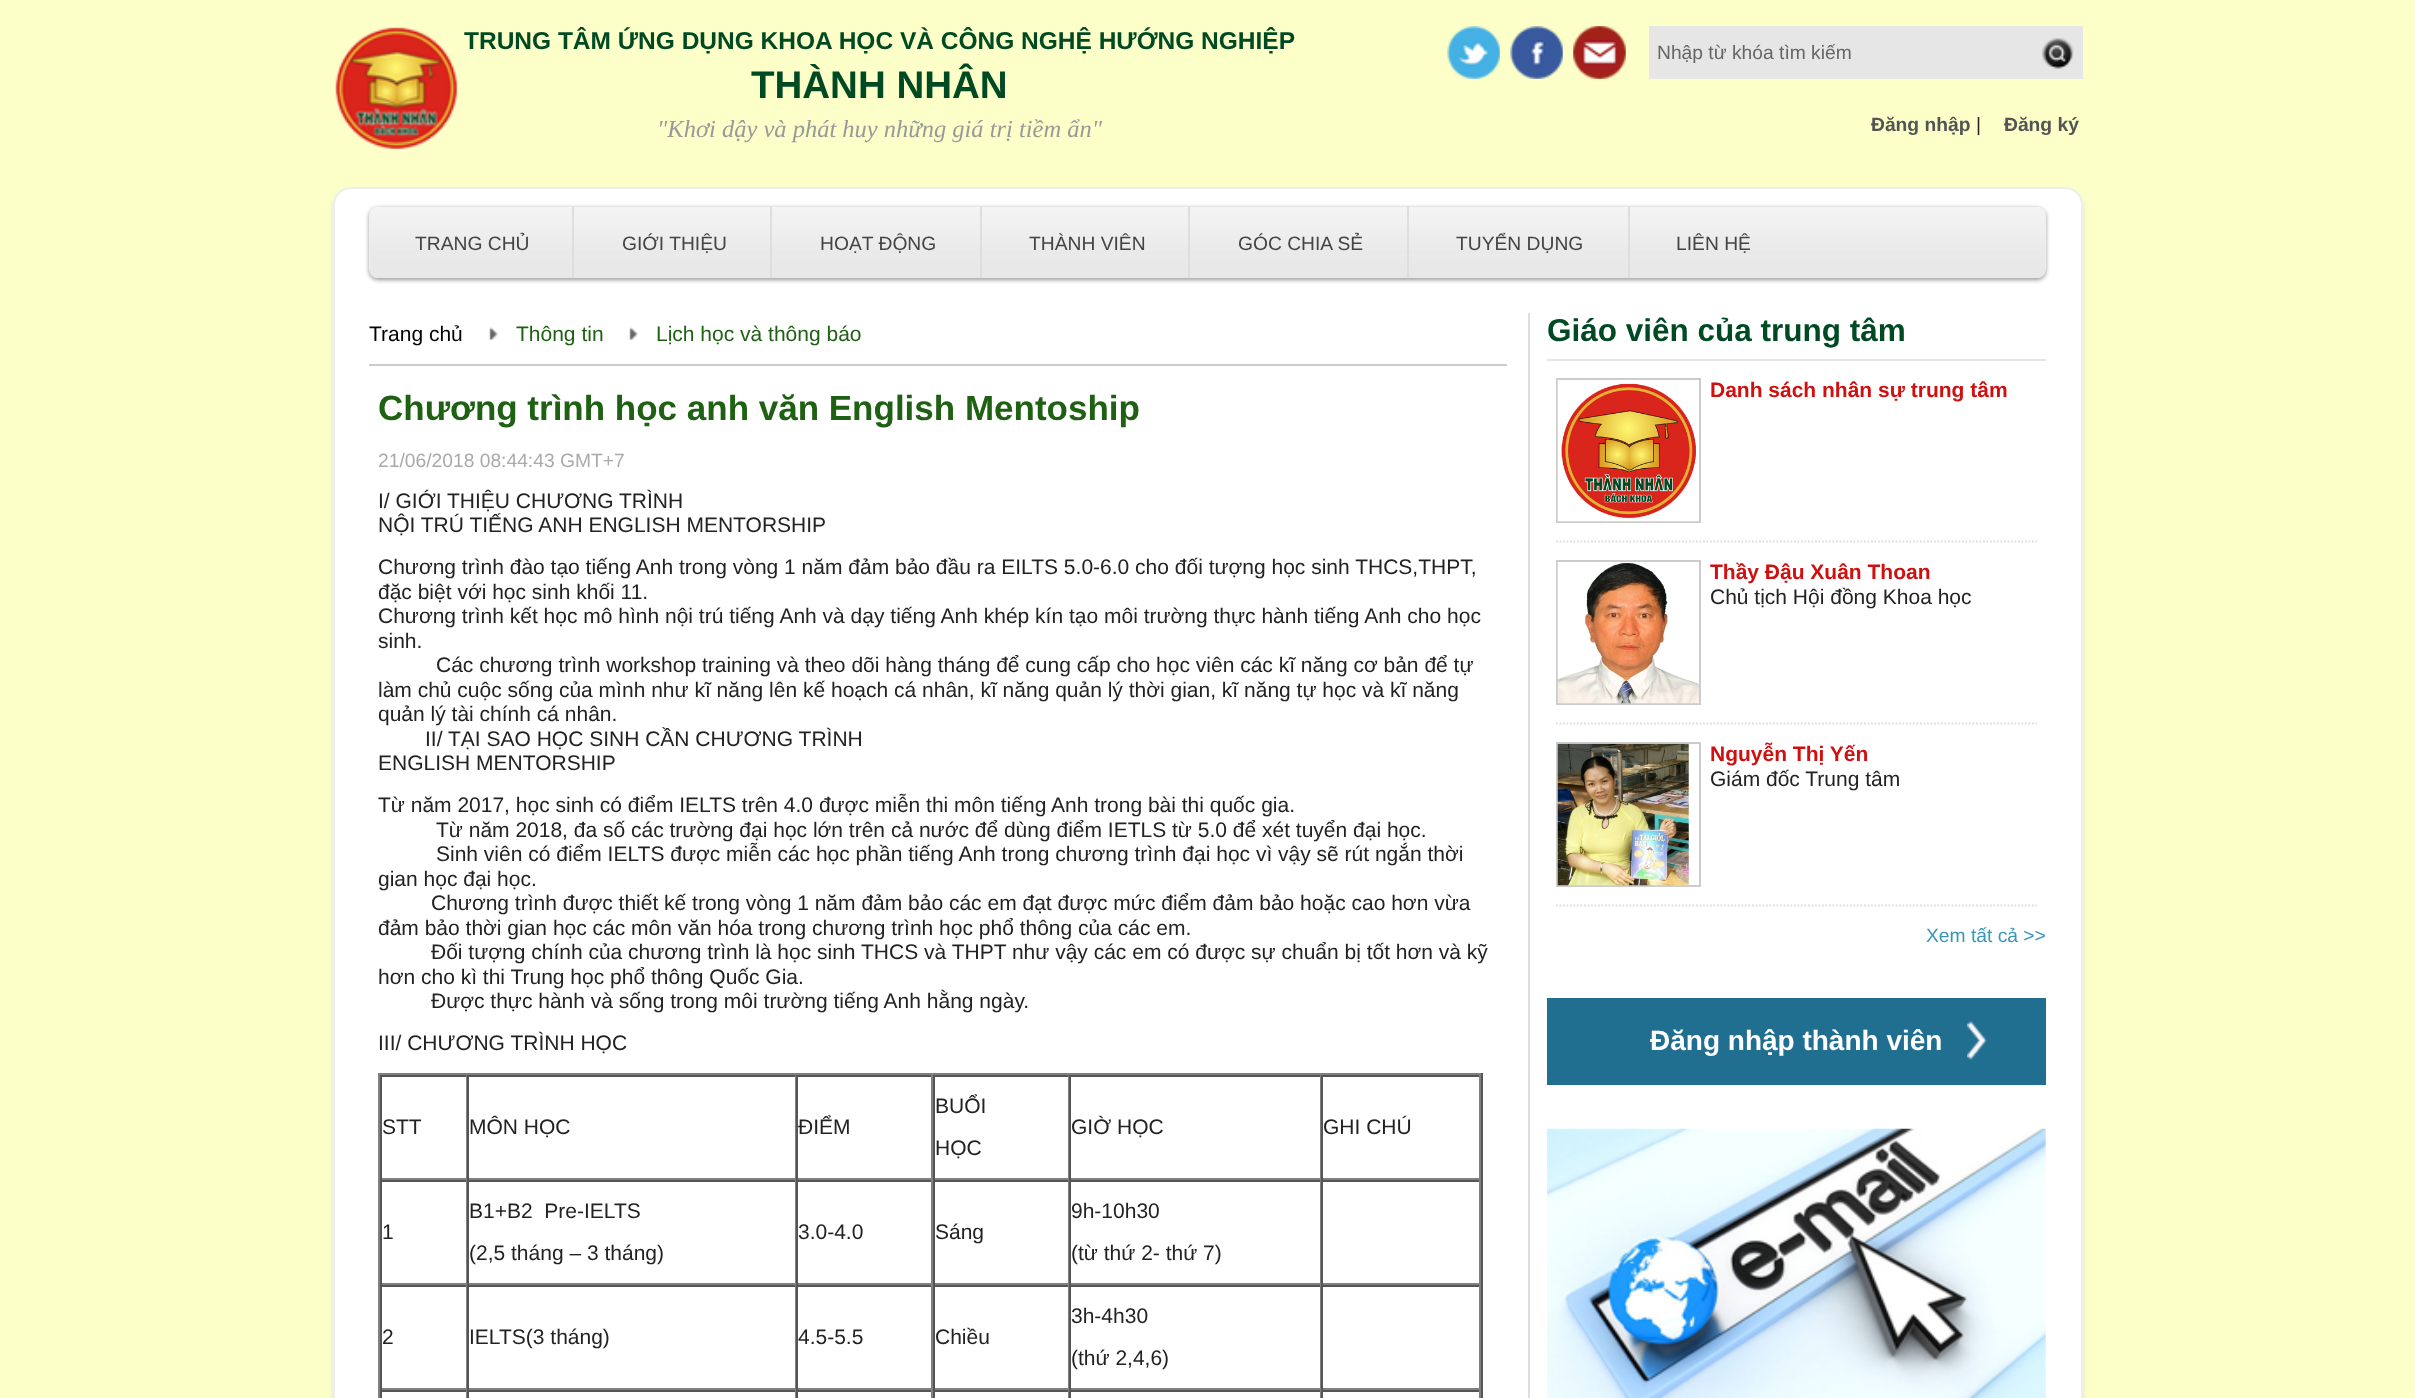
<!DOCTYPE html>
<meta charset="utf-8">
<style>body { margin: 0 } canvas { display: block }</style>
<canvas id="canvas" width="2415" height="1398"></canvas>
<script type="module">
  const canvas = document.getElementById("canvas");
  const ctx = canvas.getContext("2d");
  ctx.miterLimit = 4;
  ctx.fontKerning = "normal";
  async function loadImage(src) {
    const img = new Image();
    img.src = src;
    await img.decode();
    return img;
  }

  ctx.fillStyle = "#fcffc8";
  ctx.fillRect(0, 0, 2415, 1398);
  ctx.drawImage(await loadImage("img1.png"), 335, 27, 123, 122);
  ctx.font = "bold 24.5px Liberation Sans";
  ctx.fillStyle = "#004a23";
  ctx.fillText("TRUNG TÂM ỨNG DỤNG KHOA HỌC VÀ CÔNG NGHỆ HƯỚNG NGHIỆP", 464, 49);
  ctx.font = "bold 38.5px Liberation Sans";
  ctx.fillText("THÀNH NHÂN", 751, 98);
  ctx.font = "italic 24.5px Liberation Serif";
  ctx.fillStyle = "#999999";
  ctx.fillText("\"Khơi dậy và phát huy những giá trị tiềm ẩn\"", 657, 137);
  ctx.drawImage(await loadImage("img2.png"), 1447, 26, 53, 53);
  ctx.drawImage(await loadImage("img3.png"), 1510, 26, 53, 53);
  ctx.drawImage(await loadImage("img4.png"), 1573, 26, 53, 53);
  ctx.fillStyle = "#e6e6e6";
  ctx.fillRect(1649, 26, 434, 53);
  ctx.font = "19.25px Liberation Sans";
  ctx.fillStyle = "#666666";
  ctx.fillText("Nhập từ khóa tìm kiếm", 1657, 59);
  ctx.drawImage(await loadImage("img5.png"), 2042, 38, 32, 31);
  ctx.font = "bold 19.25px Liberation Sans";
  ctx.fillStyle = "#545454";
  ctx.fillText("Đăng nhập", 1871, 131);
  ctx.font = "19.25px Liberation Sans";
  ctx.fillStyle = "#222222";
  ctx.fillText("|", 1976, 131);
  ctx.font = "bold 19.25px Liberation Sans";
  ctx.fillStyle = "#545454";
  ctx.fillText("Đăng ký", 2004, 131);
  ctx.fillStyle = "#dedede";
  ctx.filter = "blur(2.5px)";
  ctx.beginPath();
  ctx.roundRect(333, 191, 1750, 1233, 18);
  ctx.fill();
  ctx.filter = "none";
  ctx.fillStyle = "#ffffff";
  ctx.beginPath();
  ctx.roundRect(334, 188, 1748, 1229, 17);
  ctx.fill();
  ctx.strokeStyle = "#eeeeee";
  ctx.lineWidth = 2;
  ctx.stroke();
  ctx.fillStyle = "#999999";
  ctx.filter = "blur(2px)";
  ctx.beginPath();
  ctx.roundRect(369, 208, 1677, 72, 9);
  ctx.fill();
  ctx.filter = "none";
  ctx.fillStyle = "#eeeeee";
  ctx.beginPath();
  ctx.roundRect(369, 207, 1677, 71, 9);
  ctx.fill();
  ctx.drawImage(await loadImage("img6.png"), 370, 207, 1675, 71);
  ctx.fillStyle = "#dedede";
  ctx.fillRect(572, 207, 2, 71);
  ctx.font = "19.25px Liberation Sans";
  ctx.fillStyle = "#444444";
  ctx.fillText("TRANG CHỦ", 415, 250);
  ctx.fillStyle = "#dedede";
  ctx.fillRect(770, 207, 2, 71);
  ctx.fillStyle = "#444444";
  ctx.fillText("GIỚI THIỆU", 622, 250);
  ctx.fillStyle = "#dedede";
  ctx.fillRect(980, 207, 2, 71);
  ctx.fillStyle = "#444444";
  ctx.fillText("HOẠT ĐỘNG", 820, 250);
  ctx.fillStyle = "#dedede";
  ctx.fillRect(1188, 207, 2, 71);
  ctx.fillStyle = "#444444";
  ctx.fillText("THÀNH VIÊN", 1029, 250);
  ctx.fillStyle = "#dedede";
  ctx.fillRect(1407, 207, 2, 71);
  ctx.fillStyle = "#444444";
  ctx.fillText("GÓC CHIA SẺ", 1238, 250);
  ctx.fillStyle = "#dedede";
  ctx.fillRect(1628, 207, 2, 71);
  ctx.fillStyle = "#444444";
  ctx.fillText("TUYỂN DỤNG", 1456, 250);
  ctx.fillText("LIÊN HỆ", 1676, 250);
  ctx.fillStyle = "#cccccc";
  ctx.fillRect(369, 364, 1138, 2);
  ctx.drawImage(await loadImage("img7.png"), 489, 327, 9, 13);
  ctx.font = "21px Liberation Sans";
  ctx.fillStyle = "#000000";
  ctx.fillText("Trang chủ", 369, 341);
  ctx.drawImage(await loadImage("img8.png"), 629, 327, 9, 13);
  ctx.fillStyle = "#1e6112";
  ctx.fillText("Thông tin", 516, 341);
  ctx.fillText("Lịch học và thông báo", 656, 341);
  ctx.font = "bold 35px Liberation Sans";
  ctx.fillText("Chương trình học anh văn English Mentoship", 378, 420);
  ctx.font = "19.25px Liberation Sans";
  ctx.fillStyle = "#aaaaaa";
  ctx.fillText("21/06/2018 08:44:43 GMT+7", 378, 467);
  ctx.font = "21px Liberation Sans";
  ctx.fillStyle = "#222222";
  ctx.fillText("I/ GIỚI THIỆU CHƯƠNG TRÌNH", 378, 508);
  ctx.fillText("NỘI TRÚ TIẾNG ANH ENGLISH MENTORSHIP", 378, 532);
  ctx.fillText("Chương trình đào tạo tiếng Anh trong vòng 1 năm đảm bảo đầu ra EILTS 5.0-6.0 cho đối tượng học sinh THCS,THPT,", 378, 574);
  ctx.fillText("đặc biệt với học sinh khối 11.", 378, 599);
  ctx.fillText("Chương trình kết học mô hình nội trú tiếng Anh và dạy tiếng Anh khép kín tạo môi trường thực hành tiếng Anh cho học", 378, 623);
  ctx.fillText("sinh.", 378, 648);
  ctx.fillText("Các chương trình workshop training và theo dõi hàng tháng để cung cấp cho học viên các kĩ năng cơ bản để tự", 436, 672);
  ctx.fillText("làm chủ cuộc sống của mình như kĩ năng lên kế hoạch cá nhân, kĩ năng quản lý thời gian, kĩ năng tự học và kĩ năng", 378, 697);
  ctx.fillText("quản lý tài chính cá nhân.", 378, 721);
  ctx.fillText("II/ TẠI SAO HỌC SINH CẦN CHƯƠNG TRÌNH", 425, 746);
  ctx.fillText("ENGLISH MENTORSHIP", 378, 770);
  ctx.fillText("Từ năm 2017, học sinh có điểm IELTS trên 4.0 được miễn thi môn tiếng Anh trong bài thi quốc gia.", 378, 812);
  ctx.fillText("Từ năm 2018, đa số các trường đại học lớn trên cả nước để dùng điểm IETLS từ 5.0 để xét tuyển đại học.", 436, 837);
  ctx.fillText("Sinh viên có điểm IELTS được miễn các học phần tiếng Anh trong chương trình đại học vì vậy sẽ rút ngắn thời", 436, 861);
  ctx.fillText("gian học đại học.", 378, 886);
  ctx.fillText("Chương trình được thiết kế trong vòng 1 năm đảm bảo các em đạt được mức điểm đảm bảo hoặc cao hơn vừa", 431, 910);
  ctx.fillText("đảm bảo thời gian học các môn văn hóa trong chương trình học phổ thông của các em.", 378, 935);
  ctx.fillText("Đối tượng chính của chương trình là học sinh THCS và THPT như vậy các em có được sự chuẩn bị tốt hơn và kỹ", 431, 959);
  ctx.fillText("hơn cho kì thi Trung học phổ thông Quốc Gia.", 378, 984);
  ctx.fillText("Được thực hành và sống trong môi trường tiếng Anh hằng ngày.", 431, 1008);
  ctx.fillText("III/ CHƯƠNG TRÌNH HỌC", 378, 1050);
  ctx.fillStyle = "#808080";
  ctx.fillRect(378, 1073, 1104, 2);
  ctx.fillStyle = "#555555";
  ctx.fillRect(1481, 1073, 2, 325);
  ctx.fillStyle = "#808080";
  ctx.fillRect(378, 1073, 2, 325);
  ctx.fillStyle = "#555555";
  ctx.fillRect(380, 1075, 1101, 2);
  ctx.fillStyle = "#808080";
  ctx.fillRect(466, 1075, 1, 105);
  ctx.fillRect(380, 1178, 87, 2);
  ctx.fillStyle = "#555555";
  ctx.fillRect(380, 1075, 2, 105);
  ctx.fillStyle = "#222222";
  ctx.fillText("STT", 382, 1134);
  ctx.fillStyle = "#808080";
  ctx.fillRect(795, 1075, 1, 105);
  ctx.fillRect(467, 1178, 329, 2);
  ctx.fillStyle = "#555555";
  ctx.fillRect(467, 1075, 2, 105);
  ctx.fillStyle = "#222222";
  ctx.fillText("MÔN HỌC", 469, 1134);
  ctx.fillStyle = "#808080";
  ctx.fillRect(931, 1075, 2, 105);
  ctx.fillRect(796, 1178, 137, 2);
  ctx.fillStyle = "#555555";
  ctx.fillRect(796, 1075, 2, 105);
  ctx.fillStyle = "#222222";
  ctx.fillText("ĐIỂM", 798, 1134);
  ctx.fillStyle = "#808080";
  ctx.fillRect(1068, 1075, 1, 105);
  ctx.fillRect(933, 1178, 136, 2);
  ctx.fillStyle = "#555555";
  ctx.fillRect(933, 1075, 2, 105);
  ctx.fillStyle = "#222222";
  ctx.fillText("BUỔI", 935, 1113);
  ctx.fillText("HỌC", 935, 1155);
  ctx.fillStyle = "#808080";
  ctx.fillRect(1320, 1075, 1, 105);
  ctx.fillRect(1069, 1178, 252, 2);
  ctx.fillStyle = "#555555";
  ctx.fillRect(1069, 1075, 2, 105);
  ctx.fillStyle = "#222222";
  ctx.fillText("GIỜ HỌC", 1071, 1134);
  ctx.fillStyle = "#808080";
  ctx.fillRect(1479, 1075, 2, 105);
  ctx.fillRect(1321, 1178, 160, 2);
  ctx.fillStyle = "#555555";
  ctx.fillRect(1321, 1075, 2, 105);
  ctx.fillStyle = "#222222";
  ctx.fillText("GHI CHÚ", 1323, 1134);
  ctx.fillStyle = "#555555";
  ctx.fillRect(380, 1180, 1101, 2);
  ctx.fillStyle = "#808080";
  ctx.fillRect(466, 1180, 1, 105);
  ctx.fillRect(380, 1283, 87, 2);
  ctx.fillStyle = "#555555";
  ctx.fillRect(380, 1180, 2, 105);
  ctx.fillStyle = "#222222";
  ctx.fillText("1", 382, 1239);
  ctx.fillStyle = "#808080";
  ctx.fillRect(795, 1180, 1, 105);
  ctx.fillRect(467, 1283, 329, 2);
  ctx.fillStyle = "#555555";
  ctx.fillRect(467, 1180, 2, 105);
  ctx.fillStyle = "#222222";
  ctx.fillText("B1+B2  Pre-IELTS", 469, 1218);
  ctx.fillText("(2,5 tháng – 3 tháng)", 469, 1260);
  ctx.fillStyle = "#808080";
  ctx.fillRect(931, 1180, 2, 105);
  ctx.fillRect(796, 1283, 137, 2);
  ctx.fillStyle = "#555555";
  ctx.fillRect(796, 1180, 2, 105);
  ctx.fillStyle = "#222222";
  ctx.fillText("3.0-4.0", 798, 1239);
  ctx.fillStyle = "#808080";
  ctx.fillRect(1068, 1180, 1, 105);
  ctx.fillRect(933, 1283, 136, 2);
  ctx.fillStyle = "#555555";
  ctx.fillRect(933, 1180, 2, 105);
  ctx.fillStyle = "#222222";
  ctx.fillText("Sáng", 935, 1239);
  ctx.fillStyle = "#808080";
  ctx.fillRect(1320, 1180, 1, 105);
  ctx.fillRect(1069, 1283, 252, 2);
  ctx.fillStyle = "#555555";
  ctx.fillRect(1069, 1180, 2, 105);
  ctx.fillStyle = "#222222";
  ctx.fillText("9h-10h30", 1071, 1218);
  ctx.fillText("(từ thứ 2- thứ 7)", 1071, 1260);
  ctx.fillStyle = "#808080";
  ctx.fillRect(1479, 1180, 2, 105);
  ctx.fillRect(1321, 1283, 160, 2);
  ctx.fillStyle = "#555555";
  ctx.fillRect(1321, 1180, 2, 105);
  ctx.fillRect(380, 1285, 1101, 2);
  ctx.fillStyle = "#808080";
  ctx.fillRect(466, 1285, 1, 105);
  ctx.fillRect(380, 1388, 87, 2);
  ctx.fillStyle = "#555555";
  ctx.fillRect(380, 1285, 2, 105);
  ctx.fillStyle = "#222222";
  ctx.fillText("2", 382, 1344);
  ctx.fillStyle = "#808080";
  ctx.fillRect(795, 1285, 1, 105);
  ctx.fillRect(467, 1388, 329, 2);
  ctx.fillStyle = "#555555";
  ctx.fillRect(467, 1285, 2, 105);
  ctx.fillStyle = "#222222";
  ctx.fillText("IELTS(3 tháng)", 469, 1344);
  ctx.fillStyle = "#808080";
  ctx.fillRect(931, 1285, 2, 105);
  ctx.fillRect(796, 1388, 137, 2);
  ctx.fillStyle = "#555555";
  ctx.fillRect(796, 1285, 2, 105);
  ctx.fillStyle = "#222222";
  ctx.fillText("4.5-5.5", 798, 1344);
  ctx.fillStyle = "#808080";
  ctx.fillRect(1068, 1285, 1, 105);
  ctx.fillRect(933, 1388, 136, 2);
  ctx.fillStyle = "#555555";
  ctx.fillRect(933, 1285, 2, 105);
  ctx.fillStyle = "#222222";
  ctx.fillText("Chiều", 935, 1344);
  ctx.fillStyle = "#808080";
  ctx.fillRect(1320, 1285, 1, 105);
  ctx.fillRect(1069, 1388, 252, 2);
  ctx.fillStyle = "#555555";
  ctx.fillRect(1069, 1285, 2, 105);
  ctx.fillStyle = "#222222";
  ctx.fillText("3h-4h30", 1071, 1323);
  ctx.fillText("(thứ 2,4,6)", 1071, 1365);
  ctx.fillStyle = "#808080";
  ctx.fillRect(1479, 1285, 2, 105);
  ctx.fillRect(1321, 1388, 160, 2);
  ctx.fillStyle = "#555555";
  ctx.fillRect(1321, 1285, 2, 105);
  ctx.fillRect(380, 1390, 1101, 2);
  ctx.fillStyle = "#808080";
  ctx.fillRect(466, 1390, 1, 8);
  ctx.fillStyle = "#555555";
  ctx.fillRect(380, 1390, 2, 8);
  ctx.fillStyle = "#808080";
  ctx.fillRect(795, 1390, 1, 8);
  ctx.fillStyle = "#555555";
  ctx.fillRect(467, 1390, 2, 8);
  ctx.fillStyle = "#808080";
  ctx.fillRect(931, 1390, 2, 8);
  ctx.fillStyle = "#555555";
  ctx.fillRect(796, 1390, 2, 8);
  ctx.fillStyle = "#808080";
  ctx.fillRect(1068, 1390, 1, 8);
  ctx.fillStyle = "#555555";
  ctx.fillRect(933, 1390, 2, 8);
  ctx.fillStyle = "#808080";
  ctx.fillRect(1320, 1390, 1, 8);
  ctx.fillStyle = "#555555";
  ctx.fillRect(1069, 1390, 2, 8);
  ctx.fillStyle = "#808080";
  ctx.fillRect(1479, 1390, 2, 8);
  ctx.fillStyle = "#555555";
  ctx.fillRect(1321, 1390, 2, 8);
  ctx.fillStyle = "#dedede";
  ctx.fillRect(1528, 313, 2, 1085);
  ctx.fillStyle = "#e5e5e5";
  ctx.fillRect(1547, 359, 499, 2);
  ctx.font = "bold 31.5px Liberation Sans";
  ctx.fillStyle = "#004a23";
  ctx.fillText("Giáo viên của trung tâm", 1547, 341);
  ctx.beginPath();
  ctx.moveTo(1556, 541.5);
  ctx.lineTo(2037, 541.5);
  ctx.strokeStyle = "#dddddd";
  ctx.lineWidth = 1.8;
  ctx.setLineDash([1.75, 1.75]);
  ctx.stroke();
  ctx.strokeStyle = "#cccccc";
  ctx.lineWidth = 2;
  ctx.setLineDash([]);
  ctx.strokeRect(1557, 379, 143, 143);
  ctx.drawImage(await loadImage("img9.png"), 1557, 380, 142, 142);
  ctx.font = "bold 21px Liberation Sans";
  ctx.fillStyle = "#d10f0f";
  ctx.fillText("Danh sách nhân sự trung tâm", 1710, 397);
  ctx.beginPath();
  ctx.moveTo(1556, 723.5);
  ctx.lineTo(2037, 723.5);
  ctx.strokeStyle = "#dddddd";
  ctx.lineWidth = 1.8;
  ctx.setLineDash([1.75, 1.75]);
  ctx.stroke();
  ctx.strokeStyle = "#cccccc";
  ctx.lineWidth = 2;
  ctx.setLineDash([]);
  ctx.strokeRect(1557, 561, 143, 143);
  ctx.drawImage(await loadImage("img10.png"), 1557, 562, 142, 142);
  ctx.fillText("Thầy Đậu Xuân Thoan", 1710, 579);
  ctx.font = "21px Liberation Sans";
  ctx.fillStyle = "#222222";
  ctx.fillText("Chủ tịch Hội đồng Khoa học", 1710, 604);
  ctx.beginPath();
  ctx.moveTo(1556, 905.5);
  ctx.lineTo(2037, 905.5);
  ctx.strokeStyle = "#dddddd";
  ctx.lineWidth = 1.8;
  ctx.setLineDash([1.75, 1.75]);
  ctx.stroke();
  ctx.strokeStyle = "#cccccc";
  ctx.lineWidth = 2;
  ctx.setLineDash([]);
  ctx.strokeRect(1557, 743, 143, 143);
  ctx.drawImage(await loadImage("img11.png"), 1557, 743, 132, 143);
  ctx.font = "bold 21px Liberation Sans";
  ctx.fillStyle = "#d10f0f";
  ctx.fillText("Nguyễn Thị Yến", 1710, 761);
  ctx.font = "21px Liberation Sans";
  ctx.fillStyle = "#222222";
  ctx.fillText("Giám đốc Trung tâm", 1710, 786);
  ctx.font = "19.25px Liberation Sans";
  ctx.fillStyle = "#3896b8";
  ctx.fillText("Xem tất cả >>", 1926, 942);
  ctx.fillStyle = "#206e90";
  ctx.fillRect(1547, 998, 499, 87);
  ctx.drawImage(await loadImage("img12.png"), 1967, 1021, 20, 39);
  ctx.font = "bold 28px Liberation Sans";
  ctx.fillStyle = "#ffffff";
  ctx.fillText("Đăng nhập thành viên", 1650, 1050);
  ctx.drawImage(await loadImage("img13.png"), 1547, 1128, 499, 270);
</script>
